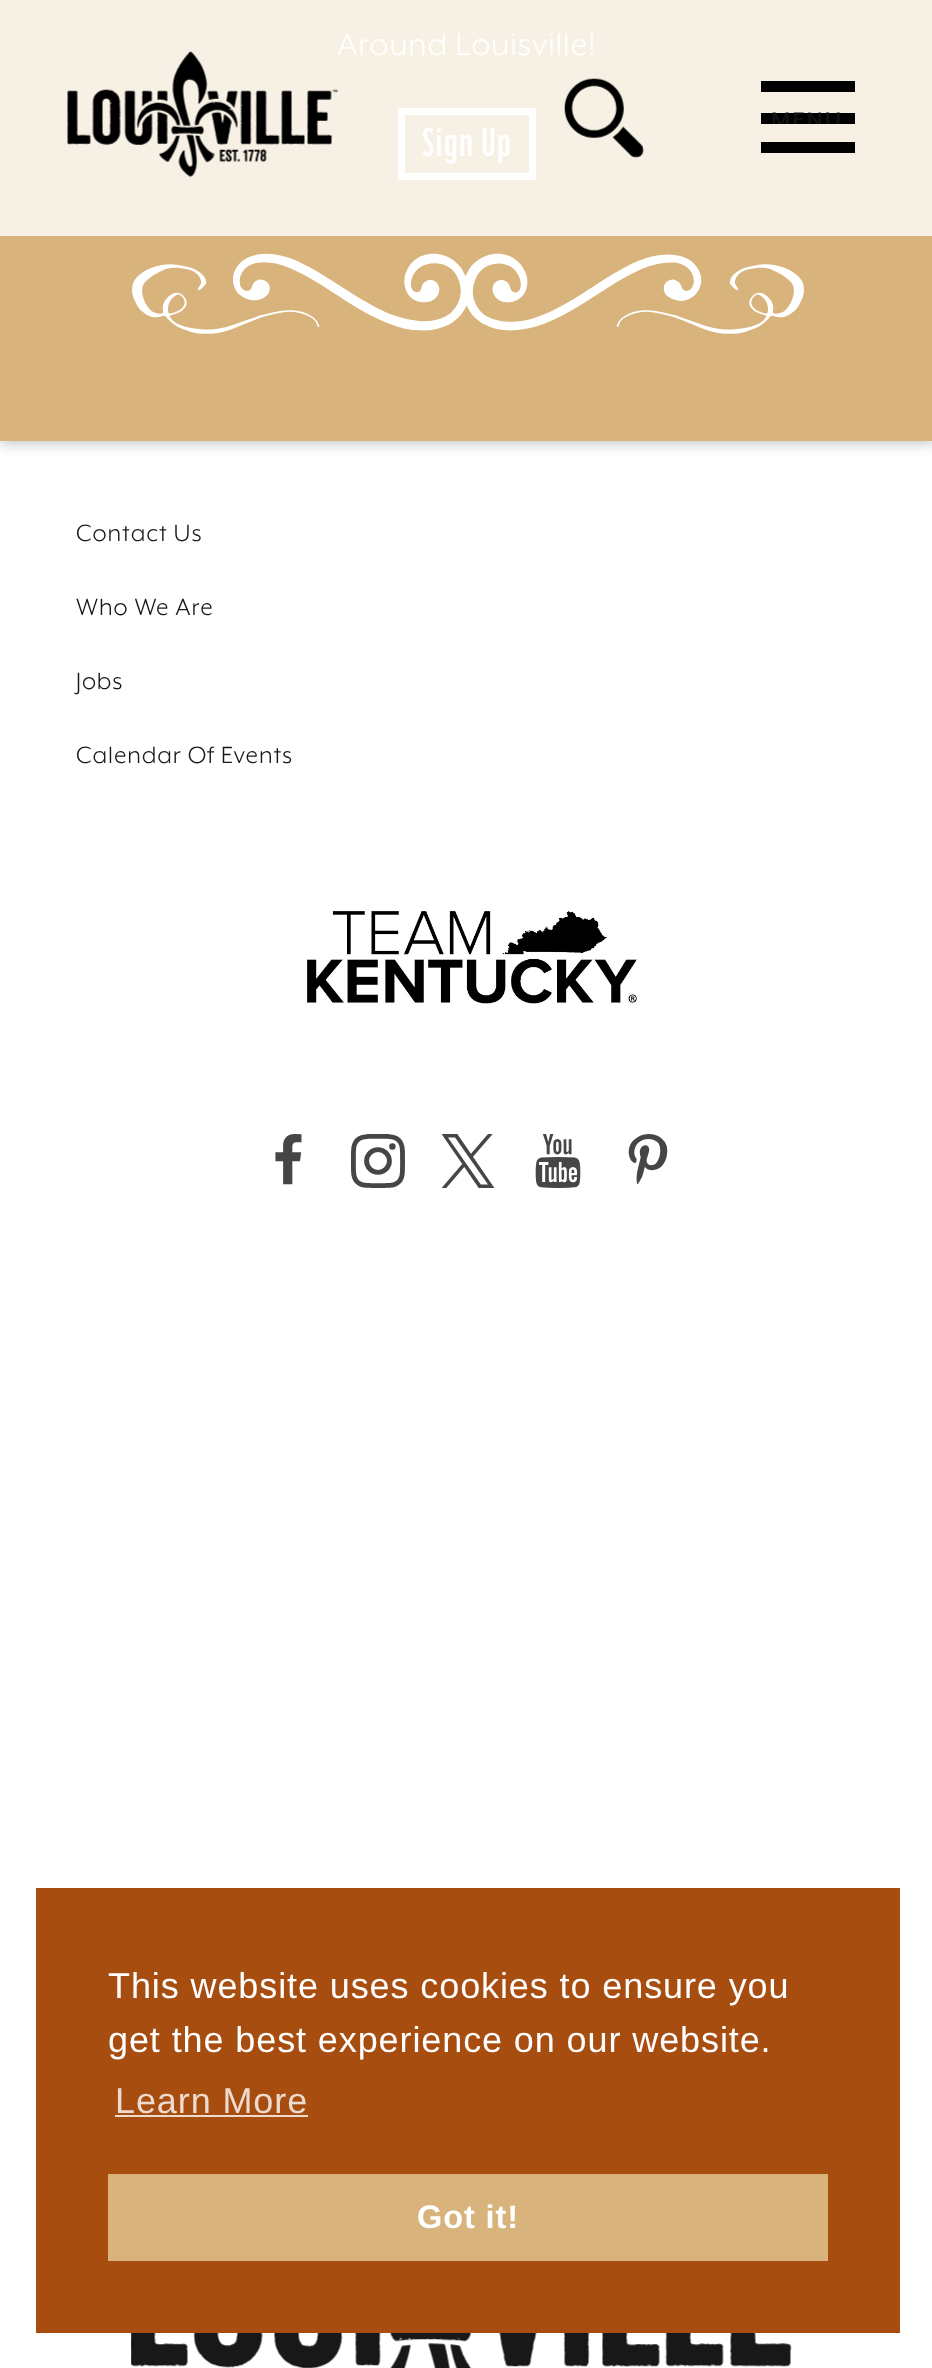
<!DOCTYPE html>
<meta charset="utf-8">
<style>body { margin: 0 } canvas { display: block }</style>
<canvas id="canvas" width="932" height="2368"></canvas>
<script type="module">
  const canvas = document.getElementById("canvas");
  const ctx = canvas.getContext("2d");
  ctx.miterLimit = 4;
  ctx.fontKerning = "normal";
  async function loadImage(src) {
    const img = new Image();
    img.src = src;
    await img.decode();
    return img;
  }

  ctx.fillStyle = "#ffffff";
  ctx.fillRect(0, 0, 932, 2368);
  ctx.fillStyle = "rgba(24, 24, 24, 0.28)";
  ctx.filter = "blur(7px)";
  ctx.beginPath();
  ctx.rect(0, -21, 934, 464);
  ctx.fill();
  ctx.filter = "none";
  ctx.fillStyle = "#d8b47c";
  ctx.fillRect(0, 236, 932, 205);
  ctx.fillStyle = "#f7f0e5";
  ctx.fillRect(0, 0, 932, 236);
  ctx.letterSpacing = "0.9px";
  ctx.font = "36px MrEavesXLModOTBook";
  ctx.fillStyle = "#ffffff";
  ctx.fillText("Around Louisville!", 337, 55);
  ctx.strokeStyle = "#ffffff";
  ctx.lineWidth = 7;
  ctx.strokeRect(401.5, 111.5, 131, 65);
  ctx.font = "300 43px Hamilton";
  ctx.fillText("Sign Up", 422, 156);
  ctx.drawImage(await loadImage("img1.png"), 132, 253, 672, 81);
  ctx.font = "27px MrEavesXLModOTBook";
  ctx.fillStyle = "#181818";
  ctx.fillText("Contact Us", 76, 541);
  ctx.fillText("Who We Are", 76, 615);
  ctx.fillText("Jobs", 76, 689);
  ctx.fillText("Calendar Of Events", 76, 763);
  ctx.drawImage(await loadImage("img2.png"), 305, 910, 332, 94);
  ctx.drawImage(await loadImage("img3.png"), 275, 1134, 27, 51);
  ctx.drawImage(await loadImage("img4.png"), 351, 1134, 54, 54);
  ctx.drawImage(await loadImage("img5.png"), 441, 1134, 54, 54);
  ctx.drawImage(await loadImage("img6.png"), 535, 1134, 46, 54);
  ctx.drawImage(await loadImage("img7.png"), 628, 1134, 40, 51);
  ctx.drawImage(await loadImage("img8.png"), 131, 2333, 661, 35);
  ctx.drawImage(await loadImage("img9.png"), 67, 51, 271, 126);
  ctx.drawImage(await loadImage("img10.png"), 564, 78, 80, 80);
  ctx.fillStyle = "#000000";
  ctx.fillRect(761, 81, 94, 11);
  ctx.fillRect(761, 113, 94, 11);
  ctx.save();
  ctx.beginPath();
  ctx.moveTo(749, 112.5);
  ctx.lineTo(866, 112.5);
  ctx.lineTo(866, 124);
  ctx.lineTo(749, 124);
  ctx.closePath();
  ctx.clip();
  ctx.letterSpacing = "2px";
  ctx.font = "bold 25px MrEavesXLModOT";
  ctx.fillStyle = "#121111";
  ctx.fillText("MENU", 771, 127);
  ctx.restore();
  ctx.fillRect(761, 142, 94, 11);
  ctx.fillStyle = "#a84d10";
  ctx.fillRect(36, 1888, 864, 445);
  ctx.font = "36px Liberation Sans";
  ctx.fillStyle = "#ffffff";
  ctx.fillText("This website uses cookies to ensure you", 108, 1998);
  ctx.fillText("get the best experience on our website.", 108, 2052);
  ctx.fillStyle = "#eedbcf";
  ctx.fillText("Learn More", 115, 2113);
  ctx.fillRect(115, 2115, 193, 2);
  ctx.fillStyle = "#d8b47c";
  ctx.fillRect(108, 2174, 720, 87);
  ctx.font = "bold 32.5px Liberation Sans";
  ctx.fillStyle = "#ffffff";
  ctx.fillText("Got it!", 417, 2228);
</script>
